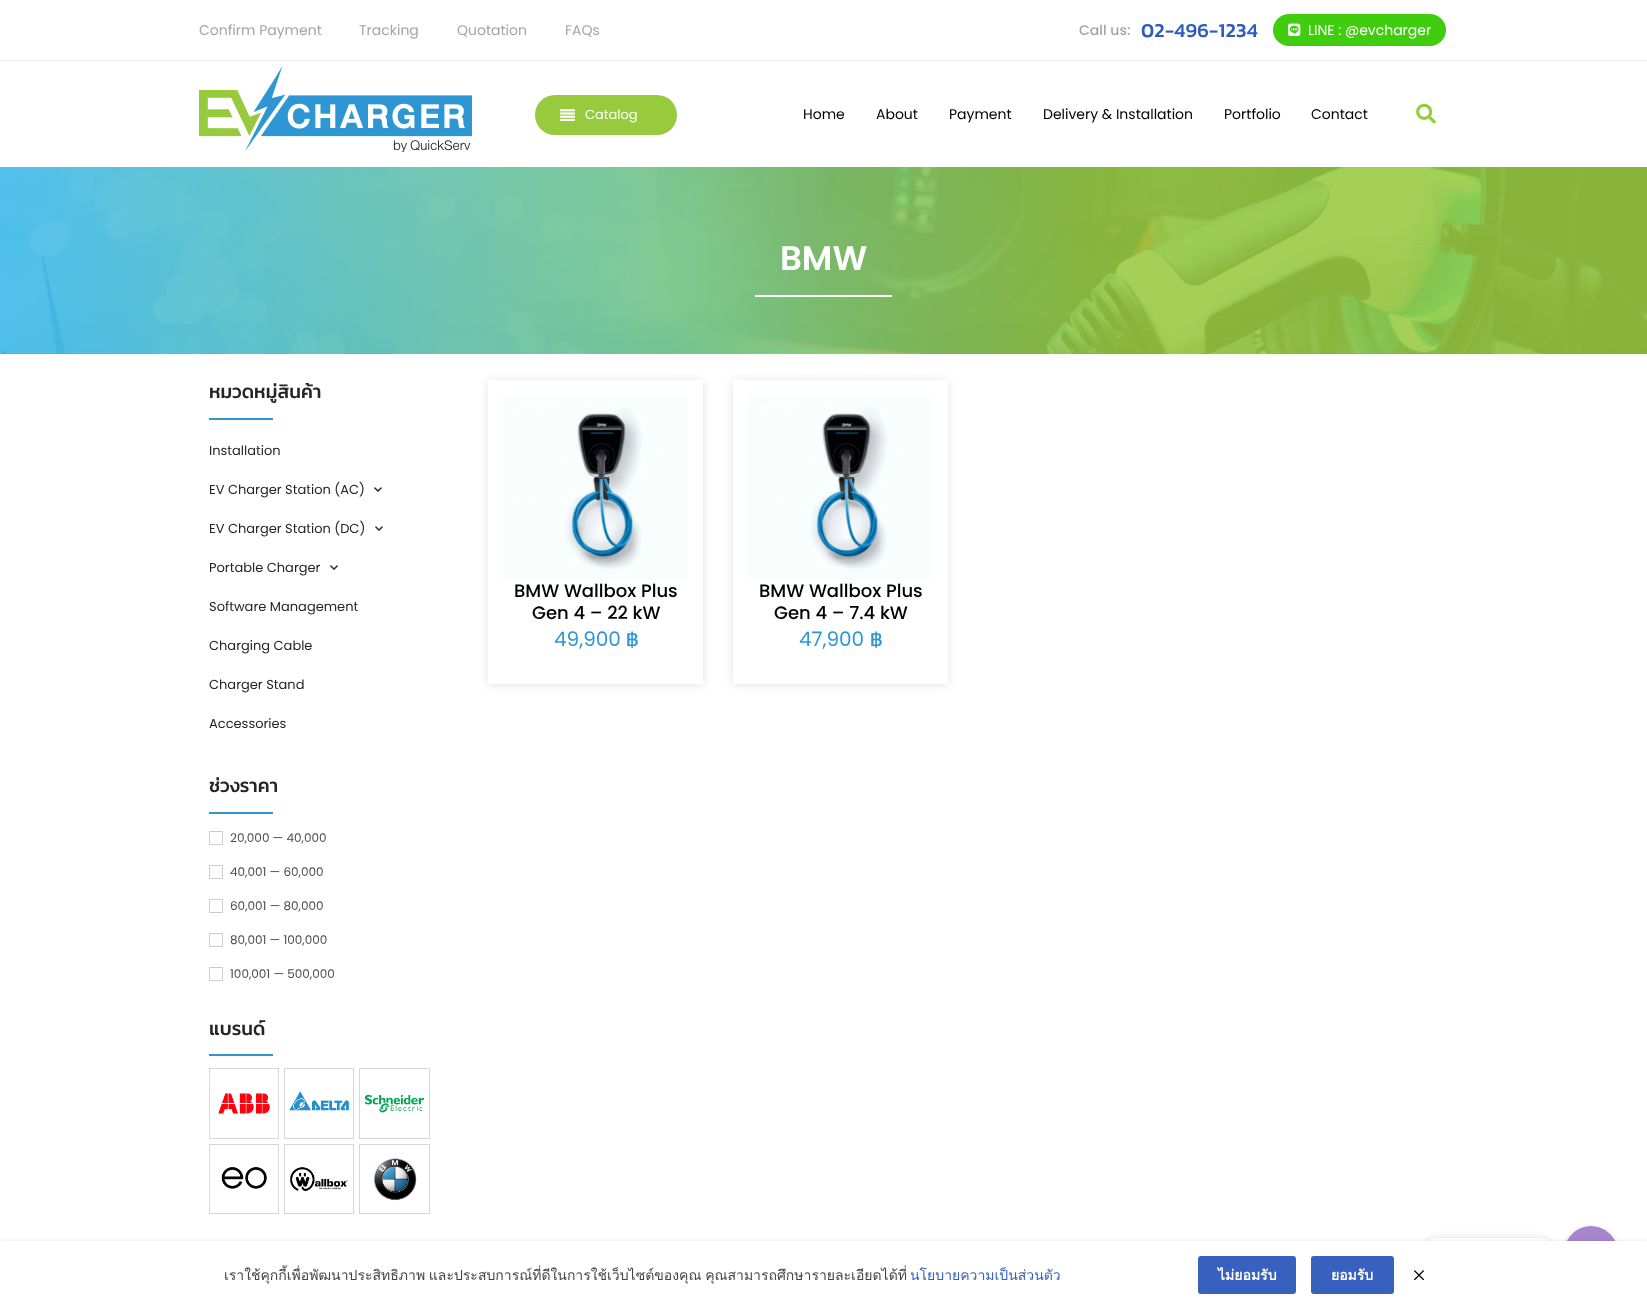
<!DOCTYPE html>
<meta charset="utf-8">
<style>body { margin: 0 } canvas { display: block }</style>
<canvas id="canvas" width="1647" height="1309"></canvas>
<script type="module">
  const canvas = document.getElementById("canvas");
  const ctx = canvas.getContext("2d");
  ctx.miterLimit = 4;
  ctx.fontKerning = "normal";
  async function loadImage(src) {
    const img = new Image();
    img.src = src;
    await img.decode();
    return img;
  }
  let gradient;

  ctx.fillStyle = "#ffffff";
  ctx.fillRect(0, 0, 1647, 1309);
  ctx.fillStyle = "#efefef";
  ctx.fillRect(0, 60, 1647, 1);
  ctx.font = "14px Poppins";
  ctx.fillStyle = "#a4a4a4";
  ctx.fillText("Confirm Payment", 199, 35);
  ctx.fillText("Tracking", 359, 35);
  ctx.fillText("Quotation", 457, 35);
  ctx.fillText("FAQs", 565, 35);
  ctx.font = "500 14px Poppins";
  ctx.fillText("Call us:", 1079, 35);
  ctx.letterSpacing = "0.25px";
  ctx.font = "500 20px Kanit";
  ctx.fillStyle = "#2f5cba";
  ctx.fillText("02-496-1234", 1141, 37);
  ctx.fillStyle = "#40cd10";
  ctx.beginPath();
  ctx.roundRect(1273, 14, 173, 32, 16);
  ctx.fill();
  ctx.drawImage(await loadImage("img1.png"), 1288, 23, 13, 13);
  ctx.letterSpacing = "0px";
  ctx.font = "14px Poppins";
  ctx.fillStyle = "#ffffff";
  ctx.fillText("LINE : @evcharger", 1308, 35);
  ctx.drawImage(await loadImage("img2.png"), 199, 66, 273, 86);
  ctx.fillStyle = "#98ca3e";
  ctx.beginPath();
  ctx.roundRect(535, 95, 142, 40, 20);
  ctx.fill();
  ctx.drawImage(await loadImage("img3.png"), 560, 109, 15, 12);
  ctx.font = "13px Poppins";
  ctx.fillStyle = "#ffffff";
  ctx.fillText("Catalog", 585, 119);
  ctx.font = "14px Poppins";
  ctx.fillStyle = "#000000";
  ctx.fillText("Home", 803, 119);
  ctx.fillText("About", 876, 119);
  ctx.fillText("Payment", 949, 119);
  ctx.fillText("Delivery & Installation", 1043, 119);
  ctx.fillText("Portfolio", 1224, 119);
  ctx.fillText("Contact", 1311, 119);
  ctx.drawImage(await loadImage("img4.png"), 1416, 103, 20, 21);
  gradient = ctx.createLinearGradient(0, 261, 1647, 260);
  gradient.addColorStop(0, "#40bbec");
  gradient.addColorStop(0.68, "#98ca3e");
  ctx.fillStyle = gradient;
  ctx.fillRect(0, 167, 1647, 187);
  ctx.drawImage(await loadImage("img5.png"), 0, 167, 1647, 187);
  ctx.font = "600 34px Poppins";
  ctx.fillStyle = "#ffffff";
  ctx.fillText("BMW", 780, 270);
  ctx.fillRect(755, 295, 137, 2);
  ctx.font = "500 19px Kanit";
  ctx.fillStyle = "#252525";
  ctx.fillText("หมวดหมู่สินค้า", 209, 398);
  ctx.fillStyle = "#2d96d3";
  ctx.fillRect(209, 418, 64, 2);
  ctx.font = "13px Poppins";
  ctx.fillStyle = "#252525";
  ctx.fillText("Installation", 209, 455);
  ctx.fillText("EV Charger Station (AC)", 209, 494);
  ctx.drawImage(await loadImage("img6.png"), 374, 487, 8, 5);
  ctx.fillText("EV Charger Station (DC)", 209, 533);
  ctx.drawImage(await loadImage("img6.png"), 375, 526, 8, 5);
  ctx.fillText("Portable Charger", 209, 572);
  ctx.drawImage(await loadImage("img6.png"), 330, 565, 8, 5);
  ctx.fillText("Software Management", 209, 611);
  ctx.fillText("Charging Cable", 209, 650);
  ctx.fillText("Charger Stand", 209, 689);
  ctx.fillText("Accessories", 209, 728);
  ctx.font = "500 19px Kanit";
  ctx.fillText("ช่วงราคา", 209, 792);
  ctx.fillStyle = "#2d96d3";
  ctx.fillRect(209, 812, 64, 2);
  ctx.strokeStyle = "#cccccc";
  ctx.strokeRect(209.5, 831.5, 13, 13);
  ctx.font = "12px Poppins";
  ctx.fillStyle = "#4b4b4b";
  ctx.fillText("20,000 — 40,000", 230, 842);
  ctx.strokeRect(209.5, 865.5, 13, 13);
  ctx.fillText("40,001 — 60,000", 230, 876);
  ctx.strokeRect(209.5, 899.5, 13, 13);
  ctx.fillText("60,001 — 80,000", 230, 910);
  ctx.strokeRect(209.5, 933.5, 13, 13);
  ctx.fillText("80,001 — 100,000", 230, 944);
  ctx.strokeRect(209.5, 967.5, 13, 13);
  ctx.fillText("100,001 — 500,000", 230, 978);
  ctx.font = "500 19px Kanit";
  ctx.fillStyle = "#252525";
  ctx.fillText("แบรนด์", 209, 1035);
  ctx.fillStyle = "#2d96d3";
  ctx.fillRect(209, 1054, 64, 2);
  ctx.strokeStyle = "#d7d7d7";
  ctx.strokeRect(209.5, 1068.5, 69, 70);
  ctx.drawImage(await loadImage("img7.png"), 218, 1093, 52, 21);
  ctx.strokeRect(284.5, 1068.5, 69, 70);
  ctx.drawImage(await loadImage("img8.png"), 289, 1091, 60, 20);
  ctx.strokeRect(359.5, 1068.5, 70, 70);
  ctx.drawImage(await loadImage("img9.png"), 364, 1094, 61, 19);
  ctx.strokeRect(209.5, 1144.5, 69, 69);
  ctx.drawImage(await loadImage("img10.png"), 221, 1167, 46, 22);
  ctx.strokeRect(284.5, 1144.5, 69, 69);
  ctx.drawImage(await loadImage("img11.png"), 290, 1167, 58, 24);
  ctx.strokeRect(359.5, 1144.5, 70, 69);
  ctx.drawImage(await loadImage("img12.png"), 373, 1158, 44, 43);
  ctx.save();
  ctx.beginPath();
  ctx.moveTo(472, 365);
  ctx.lineTo(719, 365);
  ctx.lineTo(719, 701);
  ctx.lineTo(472, 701);
  ctx.closePath();
  ctx.moveTo(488, 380);
  ctx.lineTo(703, 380);
  ctx.lineTo(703, 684);
  ctx.lineTo(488, 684);
  ctx.closePath();
  ctx.clip("evenodd");
  ctx.fillStyle = "rgba(0, 0, 0, 0.11)";
  ctx.filter = "blur(5px)";
  ctx.beginPath();
  ctx.rect(488, 381, 215, 304);
  ctx.fill();
  ctx.filter = "none";
  ctx.restore();
  ctx.drawImage(await loadImage("img13.png"), 503, 395, 185, 185);
  ctx.font = "500 18px Poppins";
  ctx.fillStyle = "#000000";
  ctx.fillText("BMW Wallbox Plus", 514, 597);
  ctx.fillText("Gen 4 – 22 kW", 532, 619);
  ctx.font = "20px Poppins";
  ctx.fillStyle = "#2d96d3";
  ctx.fillText("49,900", 554, 646);
  ctx.font = "20px Kanit";
  ctx.fillText("฿", 626, 646);
  ctx.save();
  ctx.beginPath();
  ctx.moveTo(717, 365);
  ctx.lineTo(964, 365);
  ctx.lineTo(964, 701);
  ctx.lineTo(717, 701);
  ctx.closePath();
  ctx.moveTo(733, 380);
  ctx.lineTo(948, 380);
  ctx.lineTo(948, 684);
  ctx.lineTo(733, 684);
  ctx.closePath();
  ctx.clip("evenodd");
  ctx.fillStyle = "rgba(0, 0, 0, 0.11)";
  ctx.filter = "blur(5px)";
  ctx.beginPath();
  ctx.rect(733, 381, 215, 304);
  ctx.fill();
  ctx.filter = "none";
  ctx.restore();
  ctx.drawImage(await loadImage("img13.png"), 748, 395, 185, 185);
  ctx.font = "500 18px Poppins";
  ctx.fillStyle = "#000000";
  ctx.fillText("BMW Wallbox Plus", 759, 597);
  ctx.fillText("Gen 4 – 7.4 kW", 774, 619);
  ctx.font = "20px Poppins";
  ctx.fillStyle = "#2d96d3";
  ctx.fillText("47,900", 799, 646);
  ctx.font = "20px Kanit";
  ctx.fillText("฿", 870, 646);
  ctx.fillStyle = "rgba(0, 0, 0, 0.15)";
  ctx.filter = "blur(4px)";
  ctx.beginPath();
  ctx.roundRect(1425, 1239, 127, 31, 10);
  ctx.fill();
  ctx.filter = "none";
  ctx.fillStyle = "#ffffff";
  ctx.beginPath();
  ctx.roundRect(1425, 1238, 127, 31, 10);
  ctx.fill();
  ctx.fillStyle = "rgba(0, 0, 0, 0.25)";
  ctx.filter = "blur(3px)";
  ctx.beginPath();
  ctx.roundRect(1564, 1229, 54, 54, 27);
  ctx.fill();
  ctx.filter = "none";
  ctx.drawImage(await loadImage("img15.png"), 1567, 1226, 48, 15);
  ctx.filter = "blur(2.5px)";
  ctx.beginPath();
  ctx.rect(0, 1243, 1647, 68);
  ctx.fill();
  ctx.filter = "none";
  ctx.fillStyle = "#ffffff";
  ctx.fillRect(0, 1241, 1647, 68);
  ctx.wordSpacing = "-1px";
  ctx.font = "14px Loma";
  ctx.fillStyle = "#444444";
  ctx.fillText("เราใช้คุกกี้เพื่อพัฒนาประสิทธิภาพ และประสบการณ์ที่ดีในการใช้เว็บไซต์ของคุณ คุณสามารถศึกษารายละเอียดได้ที่", 224, 1280);
  ctx.wordSpacing = "0px";
  ctx.fillStyle = "#3860be";
  ctx.fillText("นโยบายความเป็นส่วนตัว", 910, 1280);
  ctx.beginPath();
  ctx.roundRect(1198, 1256, 98, 38, 3);
  ctx.fill();
  ctx.font = "bold 14px Loma";
  ctx.fillStyle = "#ffffff";
  ctx.fillText("ไม่ยอมรับ", 1218, 1280);
  ctx.fillStyle = "#3860be";
  ctx.beginPath();
  ctx.roundRect(1311, 1256, 83, 38, 3);
  ctx.fill();
  ctx.fillStyle = "#ffffff";
  ctx.fillText("ยอมรับ", 1331, 1280);
  ctx.drawImage(await loadImage("img14.png"), 1414, 1270, 10, 10);
</script>
